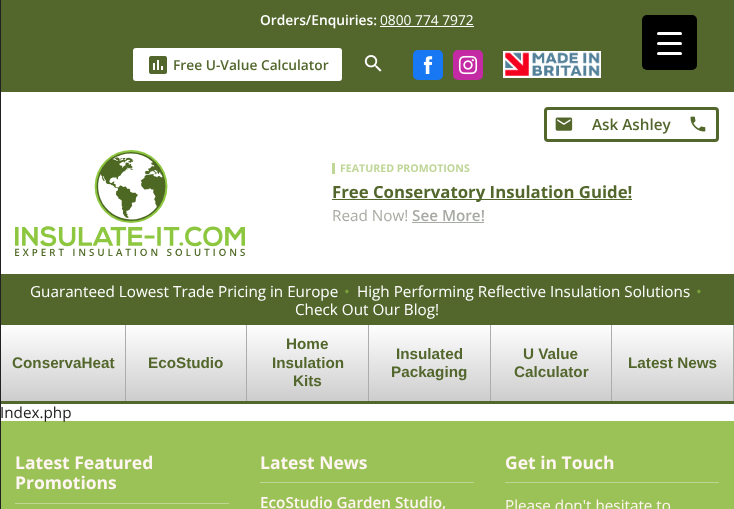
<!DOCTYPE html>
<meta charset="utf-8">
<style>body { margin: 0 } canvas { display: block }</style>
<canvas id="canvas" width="734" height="509"></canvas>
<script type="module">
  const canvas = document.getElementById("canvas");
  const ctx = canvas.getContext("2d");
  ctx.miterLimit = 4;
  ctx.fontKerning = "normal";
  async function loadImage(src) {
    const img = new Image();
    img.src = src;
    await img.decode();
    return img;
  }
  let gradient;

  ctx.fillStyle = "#53672d";
  ctx.fillRect(0, 0, 734, 509);
  ctx.fillStyle = "#212121";
  ctx.fillRect(0, 0, 1, 509);
  ctx.font = "600 13.75px Open Sans";
  ctx.fillStyle = "#ffffff";
  ctx.fillText("Orders/Enquiries:", 260, 25);
  ctx.font = "13.75px Open Sans";
  ctx.fillText("0800 774 7972", 380, 25);
  ctx.fillRect(380, 26, 94, 1);
  ctx.beginPath();
  ctx.roundRect(133, 48, 209, 33, 3);
  ctx.fill();
  ctx.drawImage(await loadImage("img1.png"), 149, 56, 18, 18);
  ctx.font = "600 13.75px Open Sans";
  ctx.fillStyle = "#53672d";
  ctx.fillText("Free U-Value Calculator", 173, 70);
  ctx.drawImage(await loadImage("img2.png"), 364, 55, 18, 17);
  ctx.fillStyle = "#1877f2";
  ctx.beginPath();
  ctx.roundRect(413, 50, 30, 30, 5);
  ctx.fill();
  ctx.drawImage(await loadImage("img3.png"), 423, 56, 10, 18);
  ctx.fillStyle = "#c32aa3";
  ctx.beginPath();
  ctx.roundRect(453, 50, 30, 30, 5);
  ctx.fill();
  ctx.drawImage(await loadImage("img4.png"), 458, 55, 20, 20);
  ctx.drawImage(await loadImage("img5.png"), 503, 51, 98, 27);
  ctx.fillStyle = "#000000";
  ctx.beginPath();
  ctx.roundRect(642, 15, 55, 55, 5);
  ctx.fill();
  ctx.fillStyle = "#ffffff";
  ctx.beginPath();
  ctx.roundRect(657, 42, 25, 3, 1.5);
  ctx.fill();
  ctx.beginPath();
  ctx.roundRect(657, 32, 25, 3, 1.5);
  ctx.fill();
  ctx.beginPath();
  ctx.roundRect(657, 52, 25, 3, 1.5);
  ctx.fill();
  ctx.fillRect(1, 92, 733, 182);
  ctx.beginPath();
  ctx.roundRect(545.5, 108.5, 172, 32, 2.5);
  ctx.strokeStyle = "#53672d";
  ctx.lineWidth = 3;
  ctx.stroke();
  ctx.drawImage(await loadImage("img6.png"), 555, 117, 18, 14);
  ctx.font = "600 15.25px Open Sans";
  ctx.fillStyle = "#53672d";
  ctx.fillText("Ask Ashley", 592, 130);
  ctx.drawImage(await loadImage("img7.png"), 690, 116, 16, 16);
  ctx.drawImage(await loadImage("img8.png"), 15, 150, 230, 106);
  ctx.fillStyle = "#bfd697";
  ctx.fillRect(332, 163, 3, 11);
  ctx.font = "bold 10.6px Open Sans";
  ctx.fillText("FEATURED PROMOTIONS", 340, 172);
  ctx.fillStyle = "#53672d";
  ctx.fillRect(332, 199, 300, 1);
  ctx.font = "bold 16.75px Open Sans";
  ctx.fillText("Free Conservatory Insulation Guide!", 332, 198);
  ctx.font = "15.25px Open Sans";
  ctx.fillStyle = "#a8aba3";
  ctx.fillText("Read Now!", 332, 221);
  ctx.font = "600 15.25px Open Sans";
  ctx.fillText("See More!", 412, 221);
  ctx.fillRect(412, 222, 72, 1);
  ctx.font = "15.25px Open Sans";
  ctx.fillStyle = "#ffffff";
  ctx.fillText("Guaranteed Lowest Trade Pricing in Europe", 30, 297);
  ctx.fillStyle = "#7ba039";
  ctx.fillText("•", 344, 297);
  ctx.fillStyle = "#ffffff";
  ctx.fillText("High Performing Reflective Insulation Solutions", 357, 297);
  ctx.fillStyle = "#7ba039";
  ctx.fillText("•", 696, 297);
  ctx.fillStyle = "#ffffff";
  ctx.fillText("Check Out Our Blog!", 295, 315);
  gradient = ctx.createLinearGradient(63, 325, 63, 401);
  gradient.addColorStop(0, "#fffeff");
  gradient.addColorStop(1, "#cdcdcd");
  ctx.fillStyle = gradient;
  ctx.fillRect(1, 325, 124, 76);
  ctx.font = "bold 15.25px Liberation Sans";
  ctx.fillStyle = "#53672d";
  ctx.fillText("ConservaHeat", 12, 368);
  gradient = ctx.createLinearGradient(186, 325, 186, 401);
  gradient.addColorStop(0, "#fffeff");
  gradient.addColorStop(1, "#cdcdcd");
  ctx.fillStyle = gradient;
  ctx.fillRect(126, 325, 120, 76);
  ctx.fillStyle = "#acacac";
  ctx.fillRect(125, 325, 1, 76);
  ctx.fillStyle = "#53672d";
  ctx.fillText("EcoStudio", 148, 368);
  gradient = ctx.createLinearGradient(308, 325, 308, 401);
  gradient.addColorStop(0, "#fffeff");
  gradient.addColorStop(1, "#cdcdcd");
  ctx.fillStyle = gradient;
  ctx.fillRect(247, 325, 121, 76);
  ctx.fillStyle = "#acacac";
  ctx.fillRect(246, 325, 1, 76);
  ctx.fillStyle = "#53672d";
  ctx.fillText("Home", 286, 349);
  ctx.fillText("Insulation", 272, 368);
  ctx.fillText("Kits", 293, 386);
  gradient = ctx.createLinearGradient(430, 325, 430, 401);
  gradient.addColorStop(0, "#fffeff");
  gradient.addColorStop(1, "#cdcdcd");
  ctx.fillStyle = gradient;
  ctx.fillRect(369, 325, 121, 76);
  ctx.fillStyle = "#acacac";
  ctx.fillRect(368, 325, 1, 76);
  ctx.fillStyle = "#53672d";
  ctx.fillText("Insulated", 396, 359);
  ctx.fillText("Packaging", 391, 377);
  gradient = ctx.createLinearGradient(551, 325, 551, 401);
  gradient.addColorStop(0, "#fffeff");
  gradient.addColorStop(1, "#cdcdcd");
  ctx.fillStyle = gradient;
  ctx.fillRect(491, 325, 120, 76);
  ctx.fillStyle = "#acacac";
  ctx.fillRect(490, 325, 1, 76);
  ctx.fillStyle = "#53672d";
  ctx.fillText("U Value", 523, 359);
  ctx.fillText("Calculator", 514, 377);
  gradient = ctx.createLinearGradient(673, 325, 673, 401);
  gradient.addColorStop(0, "#fffeff");
  gradient.addColorStop(1, "#cdcdcd");
  ctx.fillStyle = gradient;
  ctx.fillRect(612, 325, 121, 76);
  ctx.fillStyle = "#acacac";
  ctx.fillRect(733, 325, 1, 76);
  ctx.fillRect(611, 325, 1, 76);
  ctx.fillStyle = "#53672d";
  ctx.fillText("Latest News", 628, 368);
  ctx.fillStyle = "#ffffff";
  ctx.fillRect(1, 404, 733, 17);
  ctx.fillStyle = "#9bc256";
  ctx.fillRect(1, 421, 733, 88);
  ctx.font = "15.25px Open Sans";
  ctx.fillStyle = "#1d1d1d";
  ctx.fillText("Index.php", 0, 418);
  ctx.fillStyle = "#bfd697";
  ctx.fillRect(15, 503, 214, 1);
  ctx.font = "bold 17.5px Open Sans";
  ctx.fillStyle = "#fff5f2";
  ctx.fillText("Latest Featured", 15, 469);
  ctx.fillText("Promotions", 15, 489);
  ctx.fillStyle = "#bfd697";
  ctx.fillRect(260, 482, 214, 1);
  ctx.fillStyle = "#fff5f2";
  ctx.fillText("Latest News", 260, 469);
  ctx.font = "600 15.25px Open Sans";
  ctx.fillText("EcoStudio Garden Studio,", 260, 508);
  ctx.fillStyle = "#bfd697";
  ctx.fillRect(505, 482, 214, 1);
  ctx.font = "bold 17.5px Open Sans";
  ctx.fillStyle = "#fff5f2";
  ctx.fillText("Get in Touch", 505, 469);
  ctx.font = "15.25px Open Sans";
  ctx.fillText("Please don't hesitate to", 505, 511);
</script>
